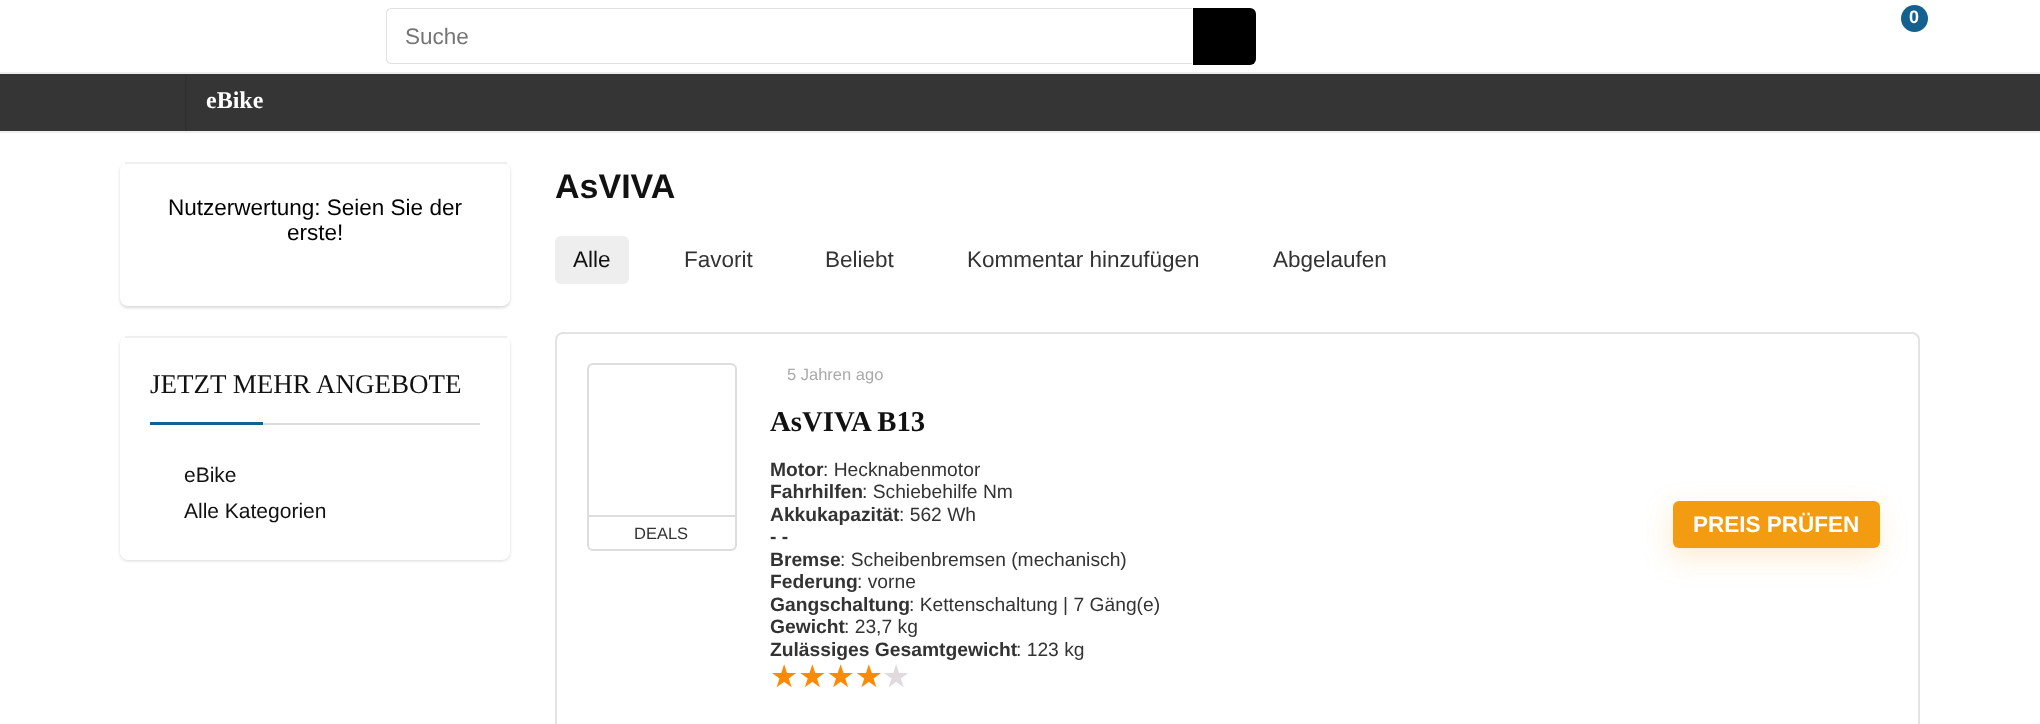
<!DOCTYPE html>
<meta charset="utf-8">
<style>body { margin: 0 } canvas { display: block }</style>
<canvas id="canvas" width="2040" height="724"></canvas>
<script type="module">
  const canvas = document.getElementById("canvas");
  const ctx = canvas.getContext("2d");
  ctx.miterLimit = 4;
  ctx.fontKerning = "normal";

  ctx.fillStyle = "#ffffff";
  ctx.fillRect(0, 0, 2040, 724);
  ctx.fillStyle = "#14608e";
  ctx.beginPath();
  ctx.arc(1914.5, 18.5, 13.5, 0, Math.PI * 2);
  ctx.fill();
  ctx.font = "bold 18px Liberation Sans";
  ctx.fillStyle = "#ffffff";
  ctx.fillText("0", 1909, 23);
  ctx.fillStyle = "#e1e1e1";
  ctx.beginPath();
  ctx.moveTo(392, 8);
  ctx.lineTo(1192, 8);
  ctx.lineTo(1192, 64);
  ctx.lineTo(392, 64);
  ctx.bezierCurveTo(388, 64, 386, 62, 386, 58);
  ctx.lineTo(386, 14);
  ctx.bezierCurveTo(386, 10, 388, 8, 392, 8);
  ctx.closePath();
  ctx.moveTo(392, 9);
  ctx.lineTo(1192, 9);
  ctx.lineTo(1192, 63);
  ctx.lineTo(392, 63);
  ctx.bezierCurveTo(389, 63, 387, 61, 387, 58);
  ctx.lineTo(387, 14);
  ctx.bezierCurveTo(387, 11, 389, 9, 392, 9);
  ctx.closePath();
  ctx.fill("evenodd");
  ctx.font = "22.5px Liberation Sans";
  ctx.fillStyle = "#757575";
  ctx.fillText("Suche", 405, 44);
  ctx.fillStyle = "#000000";
  ctx.beginPath();
  ctx.roundRect(1193, 8, 63, 57, [0, 6, 6, 0]);
  ctx.fill();
  ctx.fillStyle = "#353535";
  ctx.fillRect(0, 74, 2040, 57);
  ctx.fillStyle = "#eeeeee";
  ctx.fillRect(0, 72, 2040, 2);
  ctx.fillRect(0, 131, 2040, 2);
  ctx.fillStyle = "#313131";
  ctx.fillRect(185, 74, 2, 57);
  ctx.font = "bold 24px Liberation Serif";
  ctx.fillStyle = "#ffffff";
  ctx.fillText("eBike", 206, 108);
  ctx.font = "bold 34px Liberation Sans";
  ctx.fillStyle = "#111111";
  ctx.fillText("AsVIVA", 555, 198);
  ctx.fillStyle = "rgba(0, 0, 0, 0.15)";
  ctx.filter = "blur(1.5px)";
  ctx.beginPath();
  ctx.roundRect(120, 164, 390, 144, 8);
  ctx.fill();
  ctx.filter = "none";
  ctx.fillStyle = "#ffffff";
  ctx.beginPath();
  ctx.roundRect(120, 162, 390, 144, 8);
  ctx.fill();
  ctx.fillStyle = "#efefef";
  ctx.fillRect(125, 162, 382, 2);
  ctx.font = "22.5px Liberation Sans";
  ctx.fillStyle = "#000000";
  ctx.fillText("Nutzerwertung: Seien Sie der", 168, 215);
  ctx.fillText("erste!", 287, 240);
  ctx.fillStyle = "rgba(0, 0, 0, 0.15)";
  ctx.filter = "blur(1.5px)";
  ctx.beginPath();
  ctx.roundRect(120, 338, 390, 223, 8);
  ctx.fill();
  ctx.filter = "none";
  ctx.fillStyle = "#ffffff";
  ctx.beginPath();
  ctx.roundRect(120, 336, 390, 224, 8);
  ctx.fill();
  ctx.fillStyle = "#efefef";
  ctx.fillRect(125, 336, 382, 2);
  ctx.fillStyle = "#dddddd";
  ctx.fillRect(263, 423, 217, 2);
  ctx.font = "27px Liberation Serif";
  ctx.fillStyle = "#111111";
  ctx.fillText("JETZT MEHR ANGEBOTE", 150, 393);
  ctx.fillStyle = "#14608e";
  ctx.fillRect(150, 422, 113, 3);
  ctx.font = "21px Liberation Sans";
  ctx.fillStyle = "#111111";
  ctx.fillText("eBike", 184, 482);
  ctx.fillText("Alle Kategorien", 184, 518);
  ctx.fillStyle = "#eeeeee";
  ctx.beginPath();
  ctx.roundRect(555, 236, 74, 48, 6);
  ctx.fill();
  ctx.font = "22.5px Liberation Sans";
  ctx.fillStyle = "#111111";
  ctx.fillText("Alle", 573, 267);
  ctx.fillStyle = "#333333";
  ctx.fillText("Favorit", 684, 267);
  ctx.fillText("Beliebt", 825, 267);
  ctx.fillText("Kommentar hinzufügen", 967, 267);
  ctx.fillText("Abgelaufen", 1273, 267);
  ctx.beginPath();
  ctx.roundRect(556, 333, 1363, 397, 7);
  ctx.strokeStyle = "#e3e3e3";
  ctx.lineWidth = 2;
  ctx.stroke();
  ctx.font = "16.5px Liberation Sans";
  ctx.fillStyle = "#aaaaaa";
  ctx.fillText("5 Jahren ago", 787, 380);
  ctx.font = "bold 28.75px Liberation Serif";
  ctx.fillStyle = "#111111";
  ctx.fillText("AsVIVA B13", 770, 431);
  ctx.beginPath();
  ctx.roundRect(588, 364, 148, 186, 5);
  ctx.strokeStyle = "#dddddd";
  ctx.stroke();
  ctx.fillStyle = "#dddddd";
  ctx.fillRect(588, 515, 147, 2);
  ctx.font = "16.5px Liberation Sans";
  ctx.fillStyle = "#333333";
  ctx.fillText("DEALS", 634, 539);
  ctx.font = "bold 19.25px Liberation Sans";
  ctx.fillText("Motor", 770, 476);
  ctx.font = "19.25px Liberation Sans";
  ctx.fillText(": Hecknabenmotor", 823, 476);
  ctx.font = "bold 19.25px Liberation Sans";
  ctx.fillText("Fahrhilfen", 770, 498);
  ctx.font = "19.25px Liberation Sans";
  ctx.fillText(": Schiebehilfe Nm", 862, 498);
  ctx.font = "bold 19.25px Liberation Sans";
  ctx.fillText("Akkukapazität", 770, 521);
  ctx.font = "19.25px Liberation Sans";
  ctx.fillText(": 562 Wh", 899, 521);
  ctx.font = "bold 19.25px Liberation Sans";
  ctx.fillText("- -", 770, 543);
  ctx.fillText("Bremse", 770, 566);
  ctx.font = "19.25px Liberation Sans";
  ctx.fillText(": Scheibenbremsen (mechanisch)", 840, 566);
  ctx.font = "bold 19.25px Liberation Sans";
  ctx.fillText("Federung", 770, 588);
  ctx.font = "19.25px Liberation Sans";
  ctx.fillText(": vorne", 857, 588);
  ctx.font = "bold 19.25px Liberation Sans";
  ctx.fillText("Gangschaltung", 770, 611);
  ctx.font = "19.25px Liberation Sans";
  ctx.fillText(": Kettenschaltung | 7 Gäng(e)", 909, 611);
  ctx.font = "bold 19.25px Liberation Sans";
  ctx.fillText("Gewicht", 770, 633);
  ctx.font = "19.25px Liberation Sans";
  ctx.fillText(": 23,7 kg", 844, 633);
  ctx.font = "bold 19.25px Liberation Sans";
  ctx.fillText("Zulässiges Gesamtgewicht", 770, 656);
  ctx.font = "19.25px Liberation Sans";
  ctx.fillText(": 123 kg", 1016, 656);
  ctx.font = "31.5px DejaVu Sans";
  ctx.fillStyle = "#ff8a00";
  ctx.fillText("★★★★", 770, 687);
  ctx.fillStyle = "#e0dadf";
  ctx.fillText("★", 882, 687);
  ctx.fillStyle = "rgba(243, 156, 18, 0.2)";
  ctx.filter = "blur(14px)";
  ctx.beginPath();
  ctx.roundRect(1671, 510, 207, 47, 6);
  ctx.fill();
  ctx.filter = "none";
  ctx.fillStyle = "#f39c12";
  ctx.beginPath();
  ctx.roundRect(1673, 501, 207, 47, 6);
  ctx.fill();
  ctx.font = "bold 22.5px Liberation Sans";
  ctx.fillStyle = "#ffffff";
  ctx.fillText("PREIS PRÜFEN", 1693, 532);
</script>
